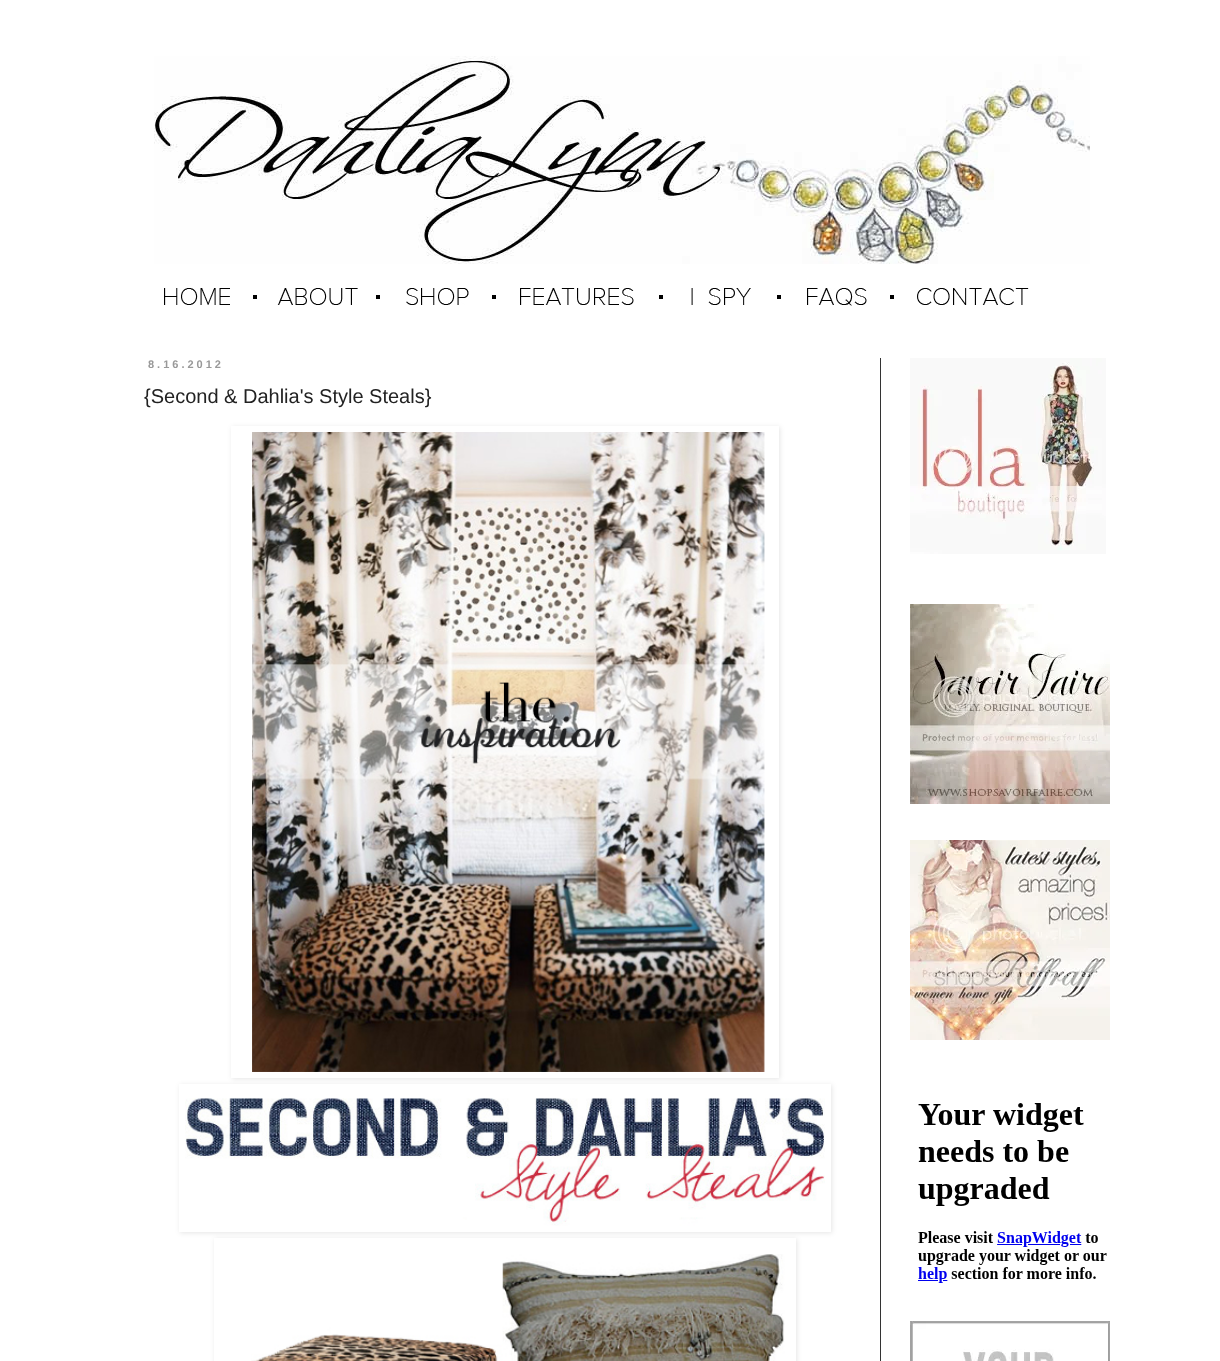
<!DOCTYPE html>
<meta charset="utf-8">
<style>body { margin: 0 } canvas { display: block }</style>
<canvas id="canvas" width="1220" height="1361"></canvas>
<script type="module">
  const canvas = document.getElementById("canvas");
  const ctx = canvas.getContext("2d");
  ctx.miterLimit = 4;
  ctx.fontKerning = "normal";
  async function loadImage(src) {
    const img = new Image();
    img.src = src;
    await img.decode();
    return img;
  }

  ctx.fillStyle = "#ffffff";
  ctx.fillRect(0, 0, 1220, 1361);
  ctx.drawImage(await loadImage("img1.png"), 154, 56, 936, 208);
  ctx.drawImage(await loadImage("img2.png"), 164, 288, 66, 17);
  ctx.fillStyle = "#000000";
  ctx.fillRect(253, 295, 4, 4);
  ctx.drawImage(await loadImage("img3.png"), 277, 288, 81, 17);
  ctx.fillRect(376, 295, 4, 4);
  ctx.drawImage(await loadImage("img4.png"), 406, 288, 63, 17);
  ctx.fillRect(492, 295, 4, 4);
  ctx.drawImage(await loadImage("img5.png"), 520, 288, 114, 17);
  ctx.fillRect(659, 295, 4, 4);
  ctx.drawImage(await loadImage("img6.png"), 691, 288, 60, 17);
  ctx.fillRect(777, 295, 4, 4);
  ctx.drawImage(await loadImage("img7.png"), 807, 288, 60, 18);
  ctx.fillRect(890, 295, 4, 4);
  ctx.drawImage(await loadImage("img8.png"), 917, 288, 112, 17);
  ctx.letterSpacing = "3px";
  ctx.font = "bold 11px Liberation Sans";
  ctx.fillStyle = "#999999";
  ctx.fillText("8.16.2012", 148, 368);
  ctx.letterSpacing = "0px";
  ctx.font = "20px Liberation Sans";
  ctx.fillStyle = "#222222";
  ctx.fillText("{Second & Dahlia's Style Steals}", 144, 403);
  ctx.save();
  ctx.beginPath();
  ctx.moveTo(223, 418);
  ctx.lineTo(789, 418);
  ctx.lineTo(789, 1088);
  ctx.lineTo(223, 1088);
  ctx.closePath();
  ctx.moveTo(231, 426);
  ctx.lineTo(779, 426);
  ctx.lineTo(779, 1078);
  ctx.lineTo(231, 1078);
  ctx.closePath();
  ctx.clip("evenodd");
  ctx.fillStyle = "rgba(0, 0, 0, 0.1)";
  ctx.filter = "blur(2.5px)";
  ctx.beginPath();
  ctx.rect(232, 427, 548, 652);
  ctx.fill();
  ctx.filter = "none";
  ctx.restore();
  ctx.drawImage(await loadImage("img9.png"), 252, 432, 513, 640);
  ctx.save();
  ctx.beginPath();
  ctx.moveTo(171, 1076);
  ctx.lineTo(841, 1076);
  ctx.lineTo(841, 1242);
  ctx.lineTo(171, 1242);
  ctx.closePath();
  ctx.moveTo(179, 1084);
  ctx.lineTo(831, 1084);
  ctx.lineTo(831, 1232);
  ctx.lineTo(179, 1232);
  ctx.closePath();
  ctx.clip("evenodd");
  ctx.fillStyle = "rgba(0, 0, 0, 0.1)";
  ctx.filter = "blur(2.5px)";
  ctx.beginPath();
  ctx.rect(180, 1085, 652, 148);
  ctx.fill();
  ctx.filter = "none";
  ctx.restore();
  ctx.drawImage(await loadImage("img10.png"), 185, 1098, 640, 128);
  ctx.save();
  ctx.beginPath();
  ctx.moveTo(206, 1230);
  ctx.lineTo(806, 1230);
  ctx.lineTo(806, 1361);
  ctx.lineTo(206, 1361);
  ctx.closePath();
  ctx.moveTo(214, 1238);
  ctx.lineTo(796, 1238);
  ctx.lineTo(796, 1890);
  ctx.lineTo(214, 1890);
  ctx.closePath();
  ctx.clip("evenodd");
  ctx.fillStyle = "rgba(0, 0, 0, 0.1)";
  ctx.filter = "blur(2.5px)";
  ctx.beginPath();
  ctx.rect(215, 1239, 582, 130);
  ctx.fill();
  ctx.filter = "none";
  ctx.restore();
  ctx.drawImage(await loadImage("img11.png"), 251, 1254, 534, 107);
  ctx.drawImage(await loadImage("img12.png"), 910, 358, 196, 196);
  ctx.drawImage(await loadImage("img13.png"), 910, 604, 200, 200);
  ctx.drawImage(await loadImage("img14.png"), 910, 840, 200, 200);
  ctx.drawImage(await loadImage("img15.png"), 918, 1103, 189, 180);
  ctx.drawImage(await loadImage("img16.png"), 910, 1321, 200, 40);
  ctx.fillStyle = "#333333";
  ctx.fillRect(880, 358, 1, 1003);
</script>
